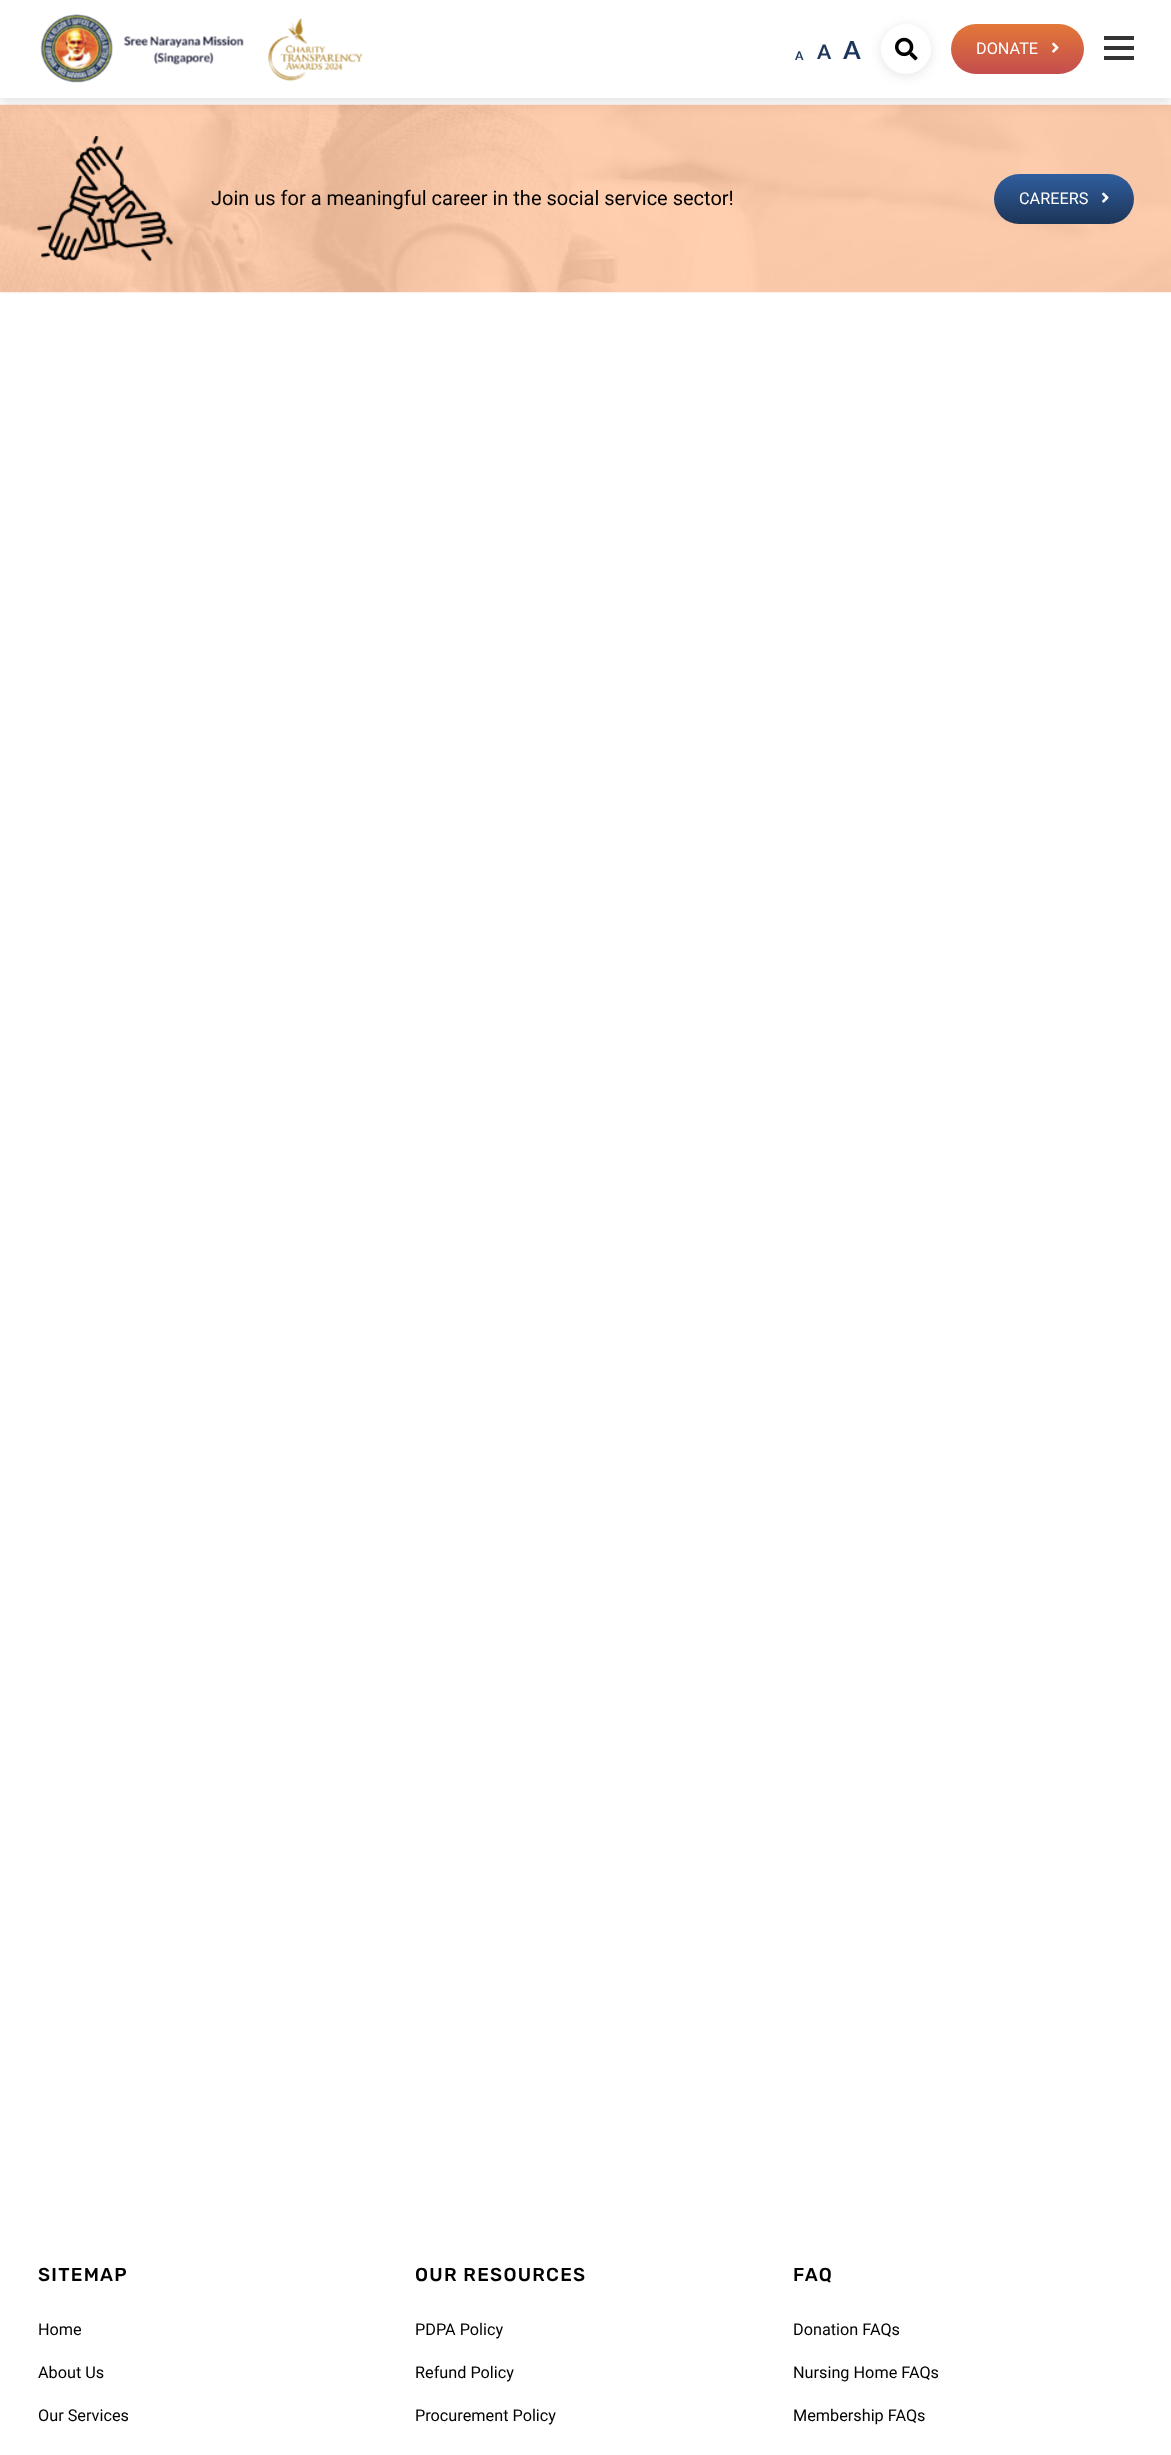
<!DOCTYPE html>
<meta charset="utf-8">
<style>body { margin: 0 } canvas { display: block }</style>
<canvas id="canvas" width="1171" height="2455"></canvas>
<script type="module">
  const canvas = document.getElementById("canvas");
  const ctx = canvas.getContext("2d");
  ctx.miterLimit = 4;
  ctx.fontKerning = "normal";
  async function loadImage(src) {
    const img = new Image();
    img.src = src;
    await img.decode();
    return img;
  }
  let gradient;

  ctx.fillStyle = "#ffffff";
  ctx.fillRect(0, 0, 1171, 2455);
  ctx.drawImage(await loadImage("img5.png"), 0, 104, 1171, 189);
  ctx.fillStyle = "rgba(0, 0, 0, 0.1)";
  ctx.filter = "blur(6px)";
  ctx.beginPath();
  ctx.rect(0, 6, 1171, 98);
  ctx.fill();
  ctx.filter = "none";
  ctx.fillStyle = "#ffffff";
  ctx.fillRect(0, 0, 1171, 98);
  ctx.drawImage(await loadImage("img1.png"), 40, 14, 204, 69);
  ctx.drawImage(await loadImage("img2.png"), 268, 18, 95, 63);
  ctx.font = "bold 12px Lato";
  ctx.fillStyle = "#1c3558";
  ctx.fillText("A", 795, 60);
  ctx.font = "bold 20px Lato";
  ctx.fillText("A", 817, 59);
  ctx.font = "bold 25px Lato";
  ctx.fillText("A", 843, 59);
  ctx.fillStyle = "rgba(0, 0, 0, 0.1)";
  ctx.filter = "blur(6px)";
  ctx.beginPath();
  ctx.roundRect(881, 26, 50, 50, 25);
  ctx.fill();
  ctx.filter = "none";
  ctx.fillStyle = "#ffffff";
  ctx.beginPath();
  ctx.arc(906, 49, 25, 0, Math.PI * 2);
  ctx.fill();
  ctx.drawImage(await loadImage("img3.png"), 895, 37, 23, 24);
  gradient = ctx.createLinearGradient(1018, 24, 1018, 74);
  gradient.addColorStop(0, "#e27838");
  gradient.addColorStop(1, "#c44d4e");
  ctx.fillStyle = gradient;
  ctx.beginPath();
  ctx.roundRect(951, 24, 133, 50, 25);
  ctx.fill();
  ctx.font = "16.25px Roboto";
  ctx.fillStyle = "#ffffff";
  ctx.fillText("DONATE", 976, 54);
  ctx.drawImage(await loadImage("img4.png"), 1052, 42, 7, 11);
  ctx.fillStyle = "#333333";
  ctx.fillRect(1104, 36, 30, 4);
  ctx.fillRect(1104, 46, 30, 4);
  ctx.fillRect(1104, 56, 30, 4);
  ctx.drawImage(await loadImage("img6.png"), 37, 136, 136, 125);
  ctx.font = "20px Roboto";
  ctx.fillStyle = "#000000";
  ctx.fillText("Join us for a meaningful career in the social service sector!", 211, 205);
  gradient = ctx.createLinearGradient(1064, 174, 1064, 224);
  gradient.addColorStop(0, "#305e9e");
  gradient.addColorStop(1, "#1c3558");
  ctx.fillStyle = gradient;
  ctx.beginPath();
  ctx.roundRect(994, 174, 140, 50, 25);
  ctx.fill();
  ctx.font = "16.25px Roboto";
  ctx.fillStyle = "#ffffff";
  ctx.fillText("CAREERS", 1019, 204);
  ctx.drawImage(await loadImage("img7.png"), 1102, 192, 7, 11);
  ctx.letterSpacing = "1.25px";
  ctx.font = "500 18.75px Rubik";
  ctx.fillStyle = "#000000";
  ctx.fillText("SITEMAP", 38, 2281);
  ctx.letterSpacing = "0px";
  ctx.font = "16.25px Roboto";
  ctx.fillText("Home", 38, 2335);
  ctx.fillText("About Us", 38, 2378);
  ctx.fillText("Our Services", 38, 2421);
  ctx.letterSpacing = "1.25px";
  ctx.font = "500 18.75px Rubik";
  ctx.fillText("OUR RESOURCES", 415, 2281);
  ctx.letterSpacing = "0px";
  ctx.font = "16.25px Roboto";
  ctx.fillText("PDPA Policy", 415, 2335);
  ctx.fillText("Refund Policy", 415, 2378);
  ctx.fillText("Procurement Policy", 415, 2421);
  ctx.letterSpacing = "1.25px";
  ctx.font = "500 18.75px Rubik";
  ctx.fillText("FAQ", 793, 2281);
  ctx.letterSpacing = "0px";
  ctx.font = "16.25px Roboto";
  ctx.fillText("Donation FAQs", 793, 2335);
  ctx.fillText("Nursing Home FAQs", 793, 2378);
  ctx.fillText("Membership FAQs", 793, 2421);
</script>
